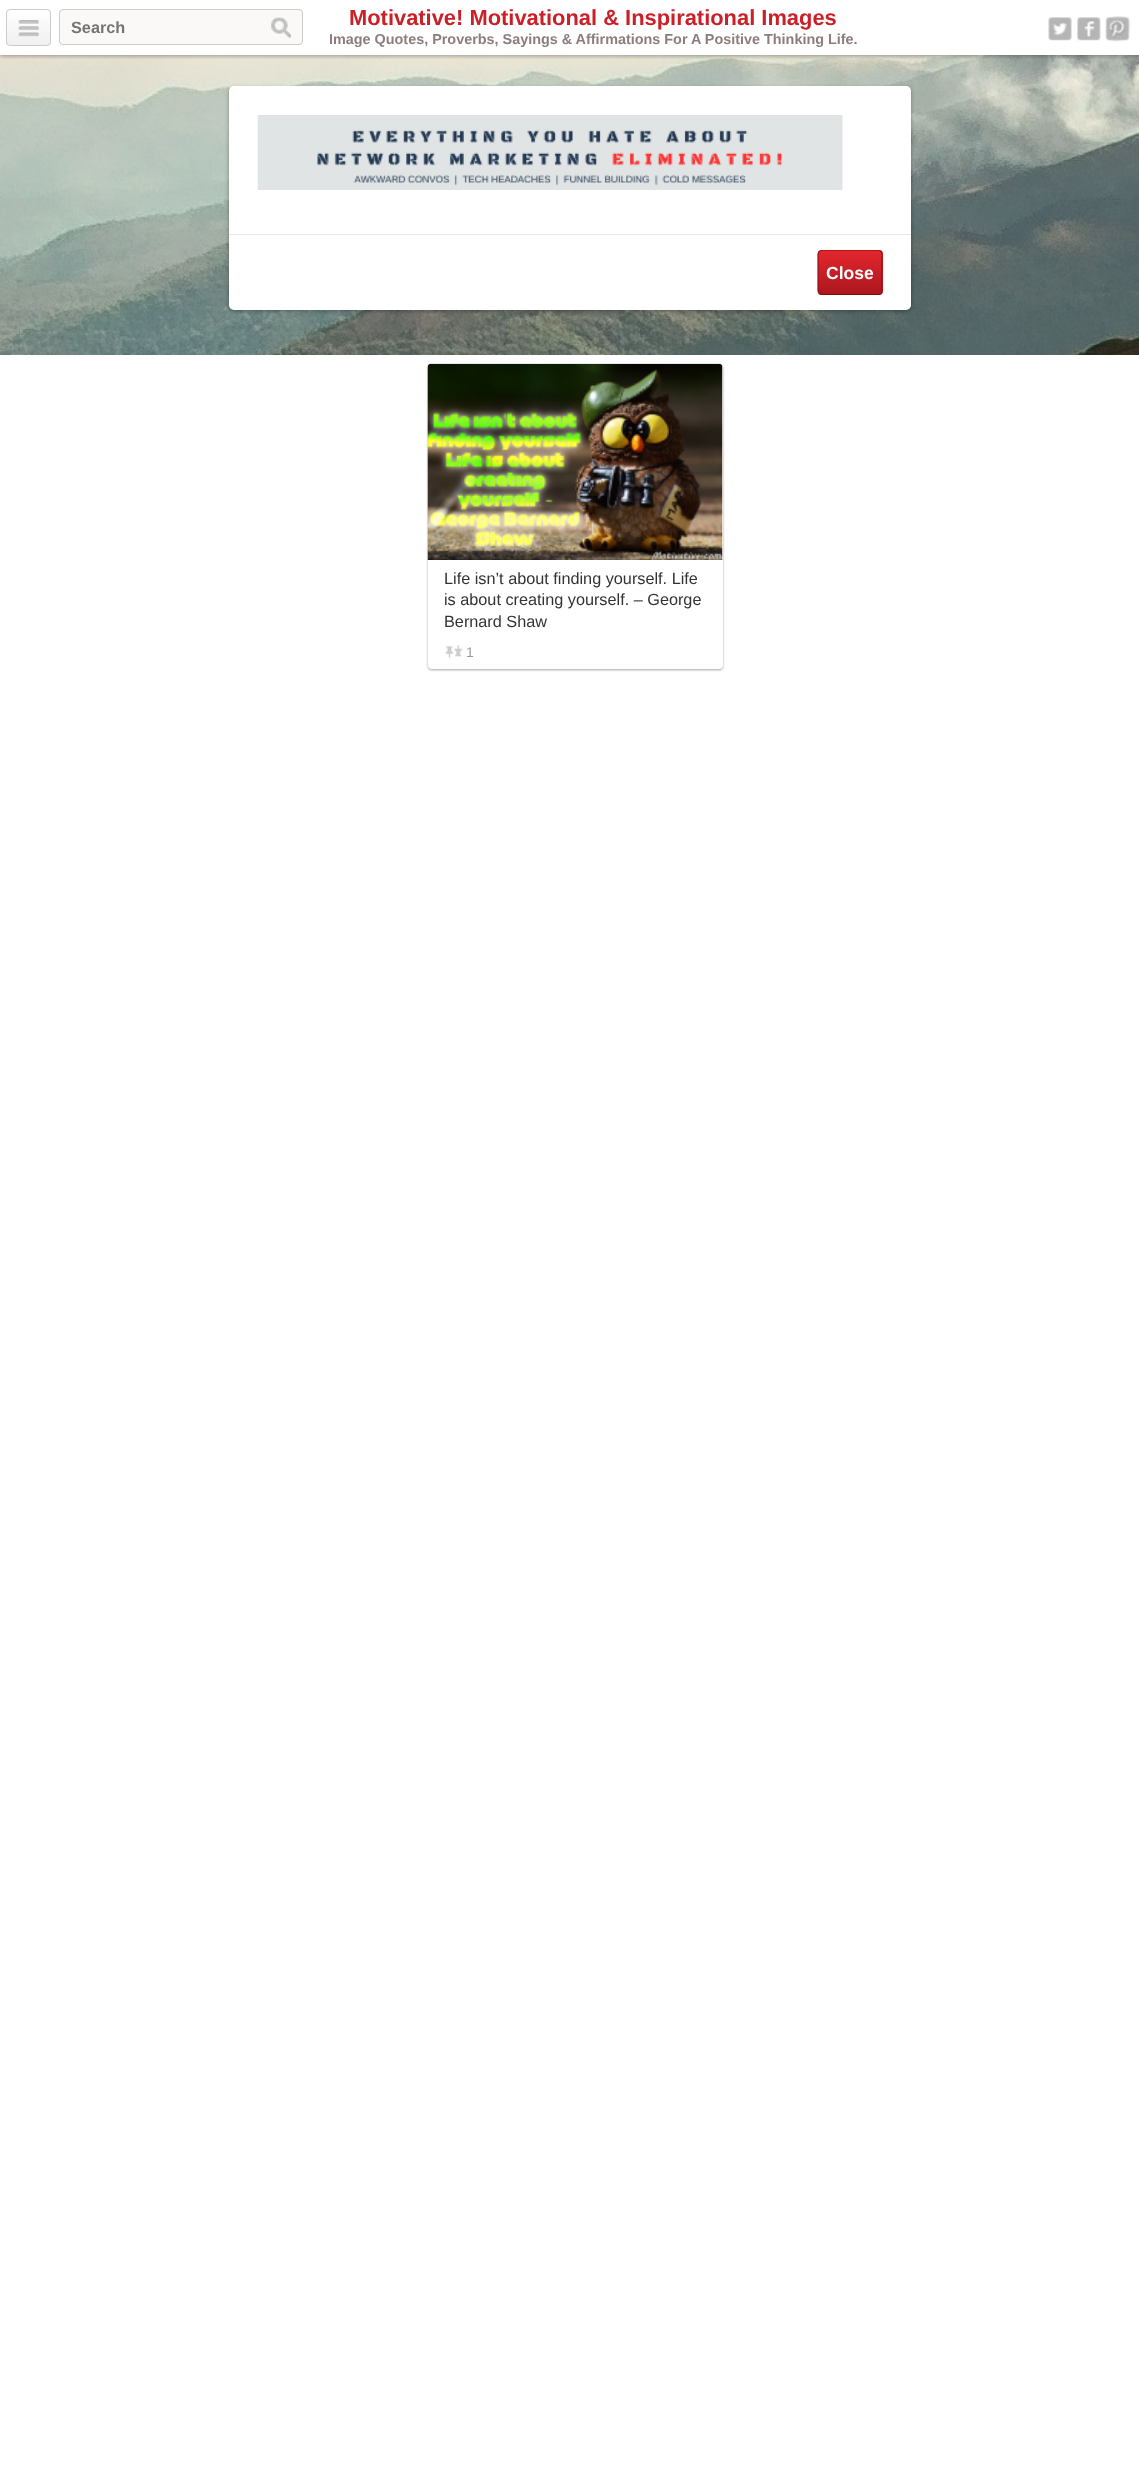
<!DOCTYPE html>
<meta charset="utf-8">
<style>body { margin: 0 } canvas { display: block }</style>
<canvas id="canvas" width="1139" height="2466"></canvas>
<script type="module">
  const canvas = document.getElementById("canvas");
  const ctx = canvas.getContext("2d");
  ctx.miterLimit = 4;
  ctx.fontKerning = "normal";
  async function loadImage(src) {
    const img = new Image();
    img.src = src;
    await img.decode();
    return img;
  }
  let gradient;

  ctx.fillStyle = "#ffffff";
  ctx.fillRect(0, 0, 1139, 2466);
  ctx.drawImage(await loadImage("img6.png"), 0, 55, 1139, 300);
  ctx.save();
  ctx.beginPath();
  ctx.rect(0, 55, 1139, 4);
  ctx.clip();
  ctx.fillStyle = "rgba(34, 25, 25, 0.4)";
  ctx.filter = "blur(2px)";
  ctx.beginPath();
  ctx.rect(0, 1, 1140, 55);
  ctx.fill();
  ctx.filter = "none";
  ctx.restore();
  ctx.save();
  ctx.beginPath();
  ctx.roundRect(6, 9, 45, 37, 4);
  ctx.clip();
  gradient = ctx.createLinearGradient(29, 10, 29, 45);
  gradient.addColorStop(0, "#ffffff");
  gradient.addColorStop(1, "#f0f0f0");
  ctx.fillStyle = gradient;
  ctx.fillRect(6, 10, 45, 35);
  ctx.restore();
  ctx.beginPath();
  ctx.roundRect(6.5, 9.5, 44, 36, 3.5);
  ctx.strokeStyle = "#cccccc";
  ctx.stroke();
  ctx.drawImage(await loadImage("img1.png"), 18, 20, 21, 17);
  ctx.fillStyle = "#faf9f7";
  ctx.beginPath();
  ctx.roundRect(59.5, 9.5, 243, 35, 3.5);
  ctx.fill();
  ctx.stroke();
  ctx.font = "bold 16.25px Liberation Sans";
  ctx.fillStyle = "#757575";
  ctx.fillText("Search", 71, 33);
  ctx.drawImage(await loadImage("img2.png"), 271, 17, 21, 21);
  ctx.font = "bold 21.9px Liberation Sans";
  ctx.fillStyle = "#cb2027";
  ctx.fillText("Motivative! Motivational & Inspirational Images", 349, 25);
  ctx.font = "bold 14.4px Liberation Sans";
  ctx.fillStyle = "#8c7e7e";
  ctx.fillText("Image Quotes, Proverbs, Sayings & Affirmations For A Positive Thinking Life.", 329, 44);
  ctx.drawImage(await loadImage("img3.png"), 1048, 17, 24, 24);
  ctx.drawImage(await loadImage("img4.png"), 1077, 17, 24, 24);
  ctx.drawImage(await loadImage("img5.png"), 1105, 16, 26, 26);
  ctx.fillStyle = "rgba(0, 0, 0, 0.33)";
  ctx.filter = "blur(2px)";
  ctx.beginPath();
  ctx.roundRect(229, 88, 682, 223, 5);
  ctx.fill();
  ctx.filter = "none";
  ctx.fillStyle = "#ffffff";
  ctx.beginPath();
  ctx.roundRect(229, 86, 682, 224, 5);
  ctx.fill();
  ctx.drawImage(await loadImage("img7.png"), 257, 115, 586, 75);
  ctx.fillStyle = "#e7e7e7";
  ctx.fillRect(229, 234, 682, 1);
  ctx.save();
  ctx.beginPath();
  ctx.roundRect(818, 250, 65, 45, 4);
  ctx.clip();
  gradient = ctx.createLinearGradient(850, 209, 850, 251);
  gradient.addColorStop(0, "#e3262e");
  gradient.addColorStop(1, "#ab171e");
  ctx.fillStyle = gradient;
  ctx.fillRect(818, 250, 65, 1);
  gradient = ctx.createLinearGradient(850, 251, 850, 294);
  gradient.addColorStop(0, "#e3262e");
  gradient.addColorStop(1, "#ab171e");
  ctx.fillStyle = gradient;
  ctx.fillRect(818, 251, 65, 43);
  gradient = ctx.createLinearGradient(850, 294, 850, 336);
  gradient.addColorStop(0, "#e3262e");
  gradient.addColorStop(1, "#ab171e");
  ctx.fillStyle = gradient;
  ctx.fillRect(818, 294, 65, 1);
  ctx.restore();
  ctx.beginPath();
  ctx.moveTo(819, 251.5);
  ctx.lineTo(821, 250.5);
  ctx.lineTo(879, 250.5);
  ctx.lineTo(881, 251.5);
  ctx.strokeStyle = "#af151b";
  ctx.lineWidth = 1.2;
  ctx.stroke();
  ctx.beginPath();
  ctx.moveTo(881, 251.5);
  ctx.lineTo(882, 254);
  ctx.lineTo(882, 291);
  ctx.lineTo(881, 293.5);
  ctx.strokeStyle = "#9a1015";
  ctx.stroke();
  ctx.beginPath();
  ctx.moveTo(881, 293.5);
  ctx.lineTo(879, 294.5);
  ctx.lineTo(821, 294.5);
  ctx.lineTo(819, 293.5);
  ctx.strokeStyle = "#820a0f";
  ctx.stroke();
  ctx.beginPath();
  ctx.moveTo(819, 293.5);
  ctx.lineTo(818, 291);
  ctx.lineTo(818, 254);
  ctx.lineTo(819, 251.5);
  ctx.strokeStyle = "#9a1015";
  ctx.stroke();
  ctx.font = "bold 17.5px Liberation Sans";
  ctx.fillStyle = "#ffffff";
  ctx.fillText("Close", 826, 279);
  ctx.fillStyle = "rgba(34, 25, 25, 0.4)";
  ctx.filter = "blur(1px)";
  ctx.beginPath();
  ctx.roundRect(428, 365, 295, 305, 4);
  ctx.fill();
  ctx.filter = "none";
  ctx.fillStyle = "#ffffff";
  ctx.beginPath();
  ctx.roundRect(428, 364, 295, 305, 4);
  ctx.fill();
  ctx.drawImage(await loadImage("img8.png"), 427, 363, 296, 197);
  ctx.fillStyle = "rgba(0, 0, 0, 0.1)";
  ctx.fillRect(428, 559, 295, 1);
  ctx.font = "16.25px Liberation Sans";
  ctx.fillStyle = "#333333";
  ctx.fillText("Life isn’t about finding yourself. Life", 444, 584);
  ctx.fillText("is about creating yourself. – George", 444, 605);
  ctx.fillText("Bernard Shaw", 444, 627);
  ctx.drawImage(await loadImage("img9.png"), 445, 645, 18, 13);
  ctx.font = "14px Liberation Sans";
  ctx.fillStyle = "#999999";
  ctx.fillText("1", 466, 657);
</script>
